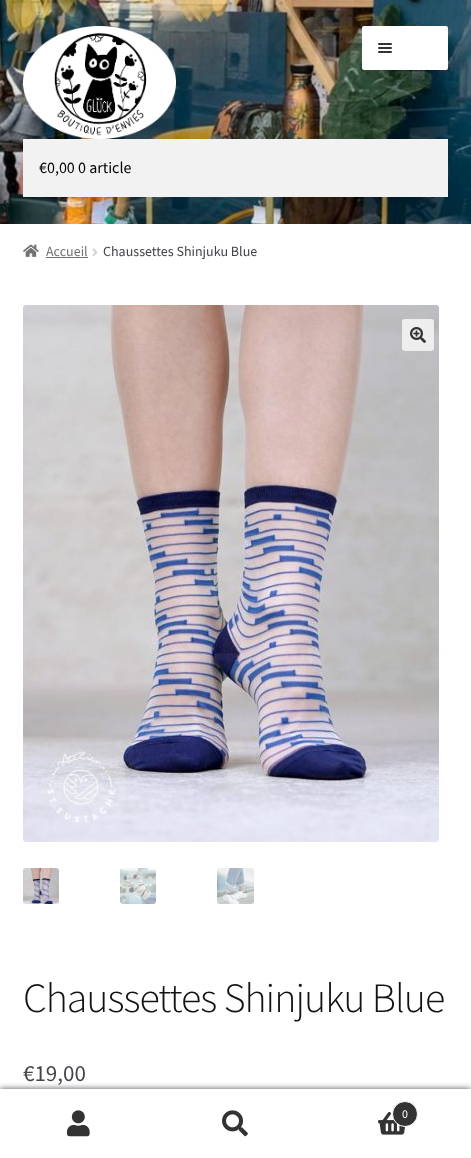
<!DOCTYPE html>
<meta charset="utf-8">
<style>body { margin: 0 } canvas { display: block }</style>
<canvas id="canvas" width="471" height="1158"></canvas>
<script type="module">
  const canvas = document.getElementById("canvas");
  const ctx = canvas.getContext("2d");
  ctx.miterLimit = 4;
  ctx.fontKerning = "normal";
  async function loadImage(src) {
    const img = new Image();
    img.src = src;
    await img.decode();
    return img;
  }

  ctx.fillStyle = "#ffffff";
  ctx.fillRect(0, 0, 471, 1158);
  ctx.drawImage(await loadImage("img1.png"), 0, 0, 471, 224);
  ctx.drawImage(await loadImage("img2.png"), 23, 26, 153, 113);
  ctx.beginPath();
  ctx.roundRect(362, 26, 86, 44, 2);
  ctx.fill();
  ctx.fillStyle = "#333333";
  ctx.beginPath();
  ctx.roundRect(378, 43, 14, 2, 1);
  ctx.fill();
  ctx.beginPath();
  ctx.roundRect(378, 47, 14, 2, 1);
  ctx.fill();
  ctx.beginPath();
  ctx.roundRect(378, 51, 14, 2, 1);
  ctx.fill();
  ctx.fillStyle = "#f2f2f2";
  ctx.fillRect(23, 139, 425, 58);
  ctx.font = "16px Source Sans Pro";
  ctx.fillStyle = "#000000";
  ctx.fillText("€0,00 0 article", 39, 173);
  ctx.drawImage(await loadImage("img3.png"), 23, 244, 16, 13);
  ctx.font = "14px Source Sans Pro";
  ctx.fillStyle = "#727272";
  ctx.fillText("Accueil", 46, 256);
  ctx.fillRect(46, 257, 42, 1);
  ctx.drawImage(await loadImage("img4.png"), 92, 248, 6, 8);
  ctx.fillStyle = "#43454b";
  ctx.fillText("Chaussettes Shinjuku Blue", 103, 256);
  ctx.drawImage(await loadImage("img5.png"), 23, 305, 416, 537);
  ctx.fillStyle = "#eeeeee";
  ctx.beginPath();
  ctx.roundRect(402, 319, 32, 32, 3);
  ctx.fill();
  ctx.drawImage(await loadImage("img6.png"), 410, 327, 16, 16);
  ctx.drawImage(await loadImage("img7.png"), 23, 868, 36, 36);
  ctx.drawImage(await loadImage("img8.png"), 120, 868, 36, 36);
  ctx.drawImage(await loadImage("img9.png"), 217, 868, 37, 36);
  ctx.letterSpacing = "-1px";
  ctx.font = "300 41.9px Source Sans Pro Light";
  ctx.fillStyle = "#131315";
  ctx.fillText("Chaussettes Shinjuku Blue", 23, 1012);
  ctx.letterSpacing = "0px";
  ctx.font = "23px Source Sans Pro";
  ctx.fillStyle = "#43454b";
  ctx.fillText("€19,00", 23, 1081);
  ctx.fillStyle = "rgba(0, 0, 0, 0.7)";
  ctx.filter = "blur(3px)";
  ctx.beginPath();
  ctx.rect(0, 1089, 471, 69);
  ctx.fill();
  ctx.filter = "none";
  ctx.fillStyle = "#ffffff";
  ctx.fillRect(0, 1089, 471, 1);
  ctx.fillRect(0, 1090, 471, 68);
  ctx.drawImage(await loadImage("img10.png"), 67, 1110, 23, 27);
  ctx.drawImage(await loadImage("img11.png"), 222, 1110, 26, 27);
  ctx.drawImage(await loadImage("img12.png"), 378, 1112, 28, 23);
  ctx.fillStyle = "#333333";
  ctx.beginPath();
  ctx.arc(405, 1114, 12.5, 0, Math.PI * 2);
  ctx.fill();
  ctx.strokeStyle = "#ffffff";
  ctx.stroke();
  ctx.font = "12px Source Sans Pro";
  ctx.fillStyle = "#ffffff";
  ctx.fillText("0", 402, 1118);
</script>
